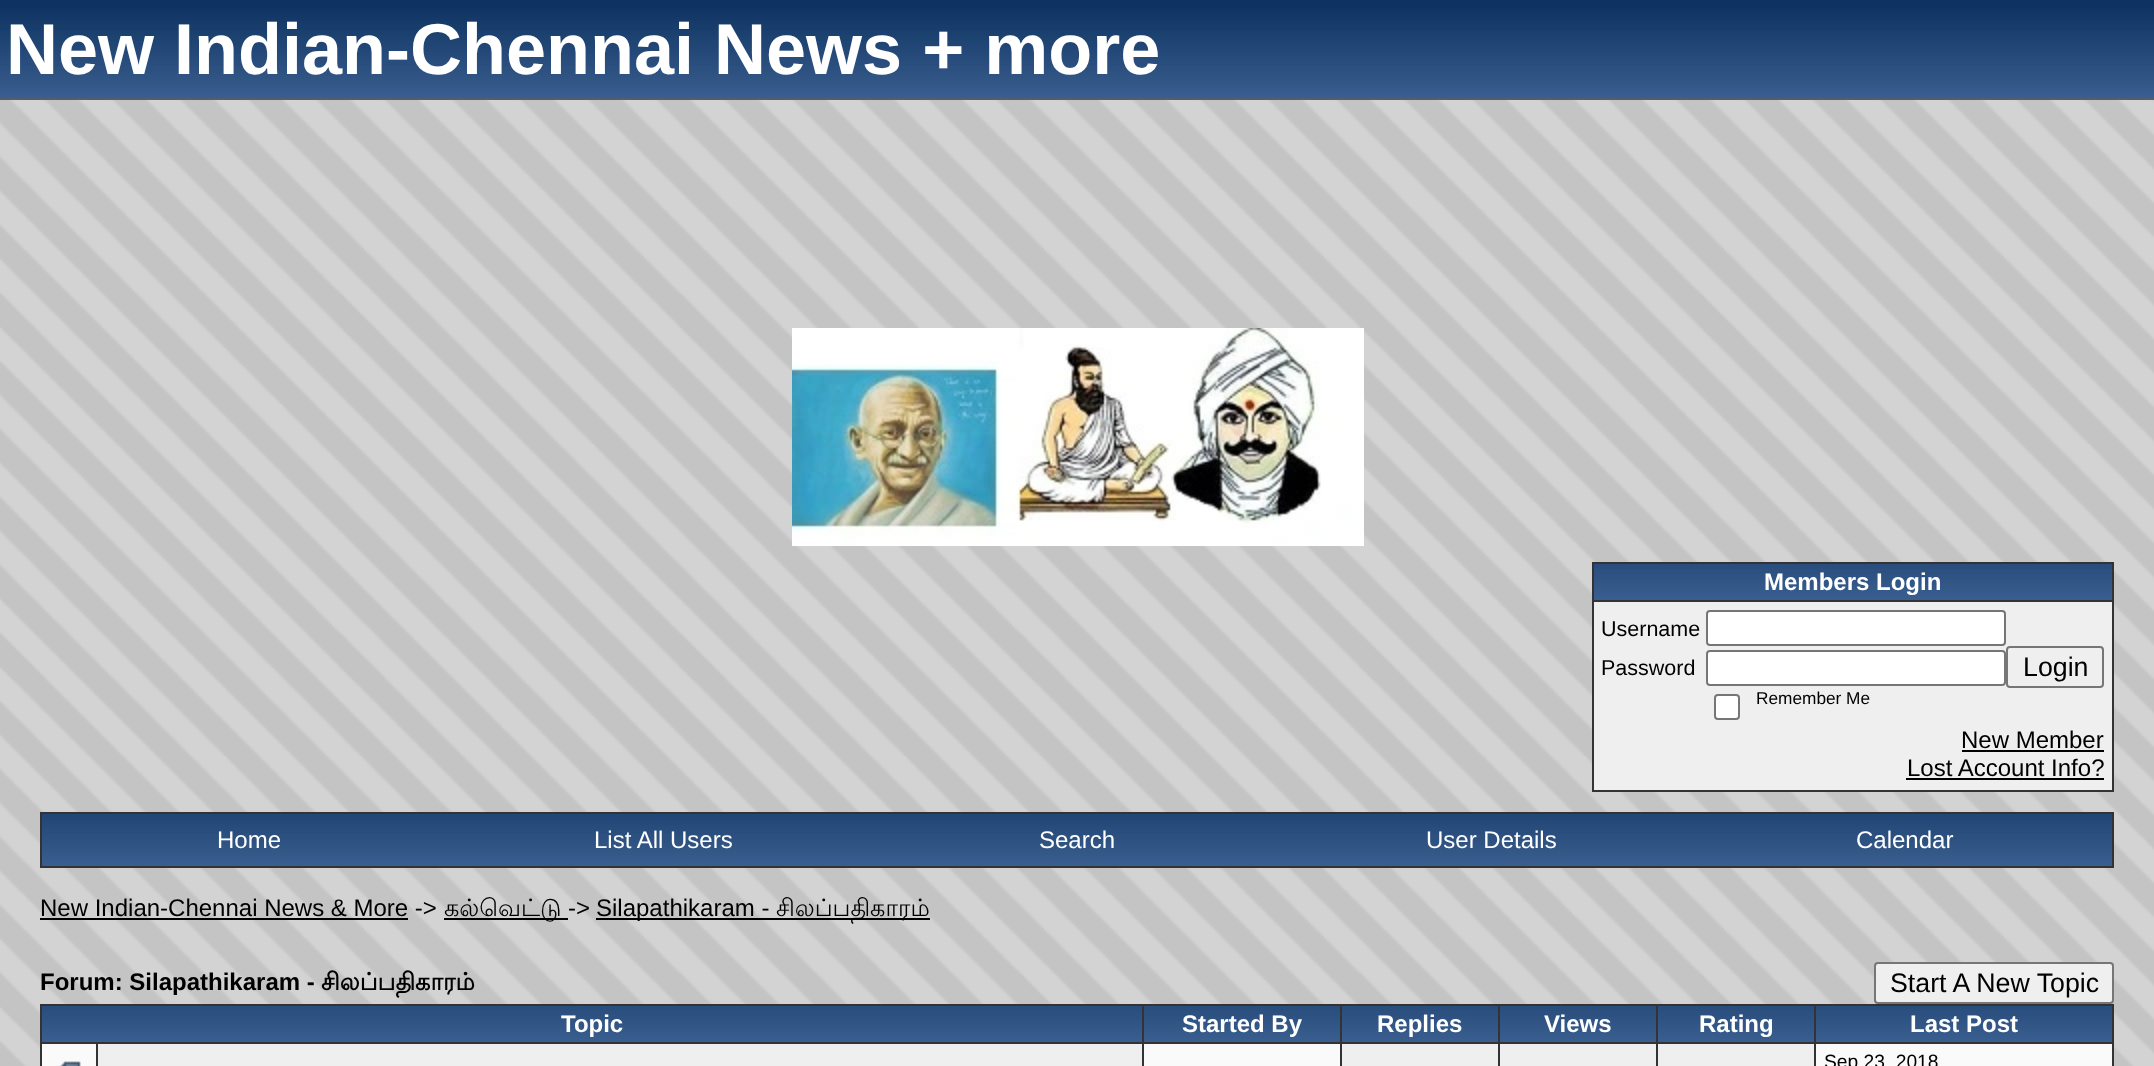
<!DOCTYPE html>
<meta charset="utf-8">
<style>body { margin: 0 } canvas { display: block }</style>
<canvas id="canvas" width="2154" height="1066"></canvas>
<script type="module">
  const canvas = document.getElementById("canvas");
  const ctx = canvas.getContext("2d");
  ctx.miterLimit = 4;
  ctx.fontKerning = "normal";
  async function loadImage(src) {
    const img = new Image();
    img.src = src;
    await img.decode();
    return img;
  }

  ctx.fillStyle = "#ffffff";
  ctx.fillRect(0, 0, 2154, 1066);
  ctx.drawImage(await loadImage("img1.png"), 0, 100, 2154, 966);
  ctx.drawImage(await loadImage("img2.png"), 0, 0, 2154, 98);
  ctx.fillStyle = "#525e6e";
  ctx.fillRect(0, 98, 2154, 2);
  ctx.font = "bold 72px Liberation Sans";
  ctx.fillStyle = "#ffffff";
  ctx.fillText("New Indian-Chennai News + more", 6, 74);
  ctx.drawImage(await loadImage("img3.png"), 792, 328, 572, 218);
  ctx.fillStyle = "#efefef";
  ctx.fillRect(1594, 602, 518, 188);
  ctx.fillStyle = "#333335";
  ctx.fillRect(1592, 562, 522, 2);
  ctx.fillRect(2112, 562, 2, 230);
  ctx.fillRect(1592, 790, 522, 2);
  ctx.fillRect(1592, 562, 2, 230);
  ctx.drawImage(await loadImage("img4.png"), 1594, 564, 518, 36);
  ctx.fillRect(1592, 600, 522, 2);
  ctx.font = "bold 24px Liberation Sans";
  ctx.fillStyle = "#ffffff";
  ctx.fillText("Members Login", 1764, 590);
  ctx.font = "21.5px Liberation Sans";
  ctx.fillStyle = "#000000";
  ctx.fillText("Username", 1601, 636);
  ctx.fillStyle = "#ffffff";
  ctx.beginPath();
  ctx.roundRect(1707, 611, 298, 34, 3);
  ctx.fill();
  ctx.strokeStyle = "#767676";
  ctx.lineWidth = 2;
  ctx.stroke();
  ctx.fillStyle = "#000000";
  ctx.fillText("Password", 1601, 675);
  ctx.fillStyle = "#ffffff";
  ctx.beginPath();
  ctx.roundRect(1707, 651, 298, 34, 3);
  ctx.fill();
  ctx.stroke();
  ctx.beginPath();
  ctx.roundRect(2007, 647, 96, 40, 3);
  ctx.stroke();
  ctx.font = "26.75px Liberation Sans";
  ctx.fillStyle = "#000000";
  ctx.fillText("Login", 2023, 676);
  ctx.fillStyle = "#ffffff";
  ctx.beginPath();
  ctx.roundRect(1715, 695, 24, 24, 3);
  ctx.fill();
  ctx.stroke();
  ctx.font = "17.25px Liberation Sans";
  ctx.fillStyle = "#000000";
  ctx.fillText("Remember Me", 1756, 704);
  ctx.font = "24px Liberation Sans";
  ctx.fillText("New Member", 1961, 748);
  ctx.fillRect(1962, 750, 142, 2);
  ctx.fillText("Lost Account Info?", 1907, 776);
  ctx.fillRect(1906, 778, 198, 2);
  ctx.strokeStyle = "#333335";
  ctx.strokeRect(41, 813, 2072, 54);
  ctx.drawImage(await loadImage("img5.png"), 42, 814, 414, 52);
  ctx.fillStyle = "#ffffff";
  ctx.fillText("Home", 217, 848);
  ctx.drawImage(await loadImage("img5.png"), 456, 814, 414, 52);
  ctx.fillText("List All Users", 594, 848);
  ctx.drawImage(await loadImage("img5.png"), 870, 814, 414, 52);
  ctx.fillText("Search", 1039, 848);
  ctx.drawImage(await loadImage("img5.png"), 1284, 814, 414, 52);
  ctx.fillText("User Details", 1426, 848);
  ctx.drawImage(await loadImage("img5.png"), 1698, 814, 414, 52);
  ctx.fillText("Calendar", 1856, 848);
  ctx.fillStyle = "#000000";
  ctx.fillText("New Indian-Chennai News & More ->", 40, 916);
  ctx.fillRect(40, 918, 368, 2);
  ctx.fillRect(444, 918, 124, 2);
  ctx.font = "24px Lohit Tamil";
  ctx.fillText("கல்வெட்டு", 444, 916);
  ctx.font = "24px Liberation Sans";
  ctx.fillText("->", 568, 916);
  ctx.fillRect(596, 918, 334, 2);
  ctx.fillText("Silapathikaram -", 596, 916);
  ctx.font = "24px Lohit Tamil";
  ctx.fillText("சிலப்பதிகாரம்", 776, 916);
  ctx.font = "bold 24px Liberation Sans";
  ctx.fillText("Forum: Silapathikaram -", 40, 990);
  ctx.font = "bold 24px Lohit Tamil";
  ctx.fillText("சிலப்பதிகாரம்", 321, 990);
  ctx.fillStyle = "#efefef";
  ctx.beginPath();
  ctx.roundRect(1875, 963, 238, 40, 3);
  ctx.fill();
  ctx.strokeStyle = "#767676";
  ctx.stroke();
  ctx.font = "26.75px Liberation Sans";
  ctx.fillStyle = "#000000";
  ctx.fillText("Start A New Topic", 1890, 992);
  ctx.fillStyle = "#efefef";
  ctx.fillRect(98, 1044, 1716, 22);
  ctx.fillStyle = "#333335";
  ctx.fillRect(40, 1004, 2074, 2);
  ctx.fillRect(2112, 1004, 2, 62);
  ctx.fillRect(40, 1004, 2, 62);
  ctx.drawImage(await loadImage("img6.png"), 42, 1006, 1100, 36);
  ctx.fillRect(1814, 1042, 300, 2);
  ctx.fillRect(1814, 1042, 2, 24);
  ctx.fillRect(1656, 1042, 160, 2);
  ctx.fillRect(1656, 1042, 2, 24);
  ctx.fillRect(1498, 1042, 160, 2);
  ctx.fillRect(1498, 1042, 2, 24);
  ctx.fillRect(1340, 1042, 160, 2);
  ctx.fillRect(1340, 1042, 2, 24);
  ctx.fillRect(1142, 1042, 200, 2);
  ctx.fillRect(1142, 1042, 2, 24);
  ctx.fillRect(96, 1042, 1048, 2);
  ctx.fillRect(1142, 1004, 2, 40);
  ctx.font = "bold 24px Liberation Sans";
  ctx.fillStyle = "#ffffff";
  ctx.fillText("Topic", 561, 1032);
  ctx.drawImage(await loadImage("img7.png"), 1144, 1006, 196, 36);
  ctx.fillStyle = "#333335";
  ctx.fillRect(1340, 1004, 2, 40);
  ctx.fillStyle = "#ffffff";
  ctx.fillText("Started By", 1182, 1032);
  ctx.drawImage(await loadImage("img8.png"), 1342, 1006, 156, 36);
  ctx.fillStyle = "#333335";
  ctx.fillRect(1498, 1004, 2, 40);
  ctx.fillStyle = "#ffffff";
  ctx.fillText("Replies", 1377, 1032);
  ctx.drawImage(await loadImage("img8.png"), 1500, 1006, 156, 36);
  ctx.fillStyle = "#333335";
  ctx.fillRect(1656, 1004, 2, 40);
  ctx.fillStyle = "#ffffff";
  ctx.fillText("Views", 1544, 1032);
  ctx.drawImage(await loadImage("img8.png"), 1658, 1006, 156, 36);
  ctx.fillStyle = "#333335";
  ctx.fillRect(1814, 1004, 2, 40);
  ctx.fillStyle = "#ffffff";
  ctx.fillText("Rating", 1699, 1032);
  ctx.drawImage(await loadImage("img9.png"), 1816, 1006, 296, 36);
  ctx.fillText("Last Post", 1910, 1032);
  ctx.fillStyle = "#fafafa";
  ctx.fillRect(42, 1044, 54, 22);
  ctx.fillStyle = "#333335";
  ctx.fillRect(96, 1042, 2, 24);
  ctx.fillRect(40, 1042, 58, 2);
  ctx.drawImage(await loadImage("img10.png"), 59, 1061, 22, 5);
  ctx.fillStyle = "#fafafa";
  ctx.fillRect(1144, 1044, 196, 22);
  ctx.fillRect(1816, 1044, 296, 22);
  ctx.font = "19.25px Liberation Sans";
  ctx.fillStyle = "#000000";
  ctx.fillText("Sep 23, 2018", 1824, 1068);
</script>
